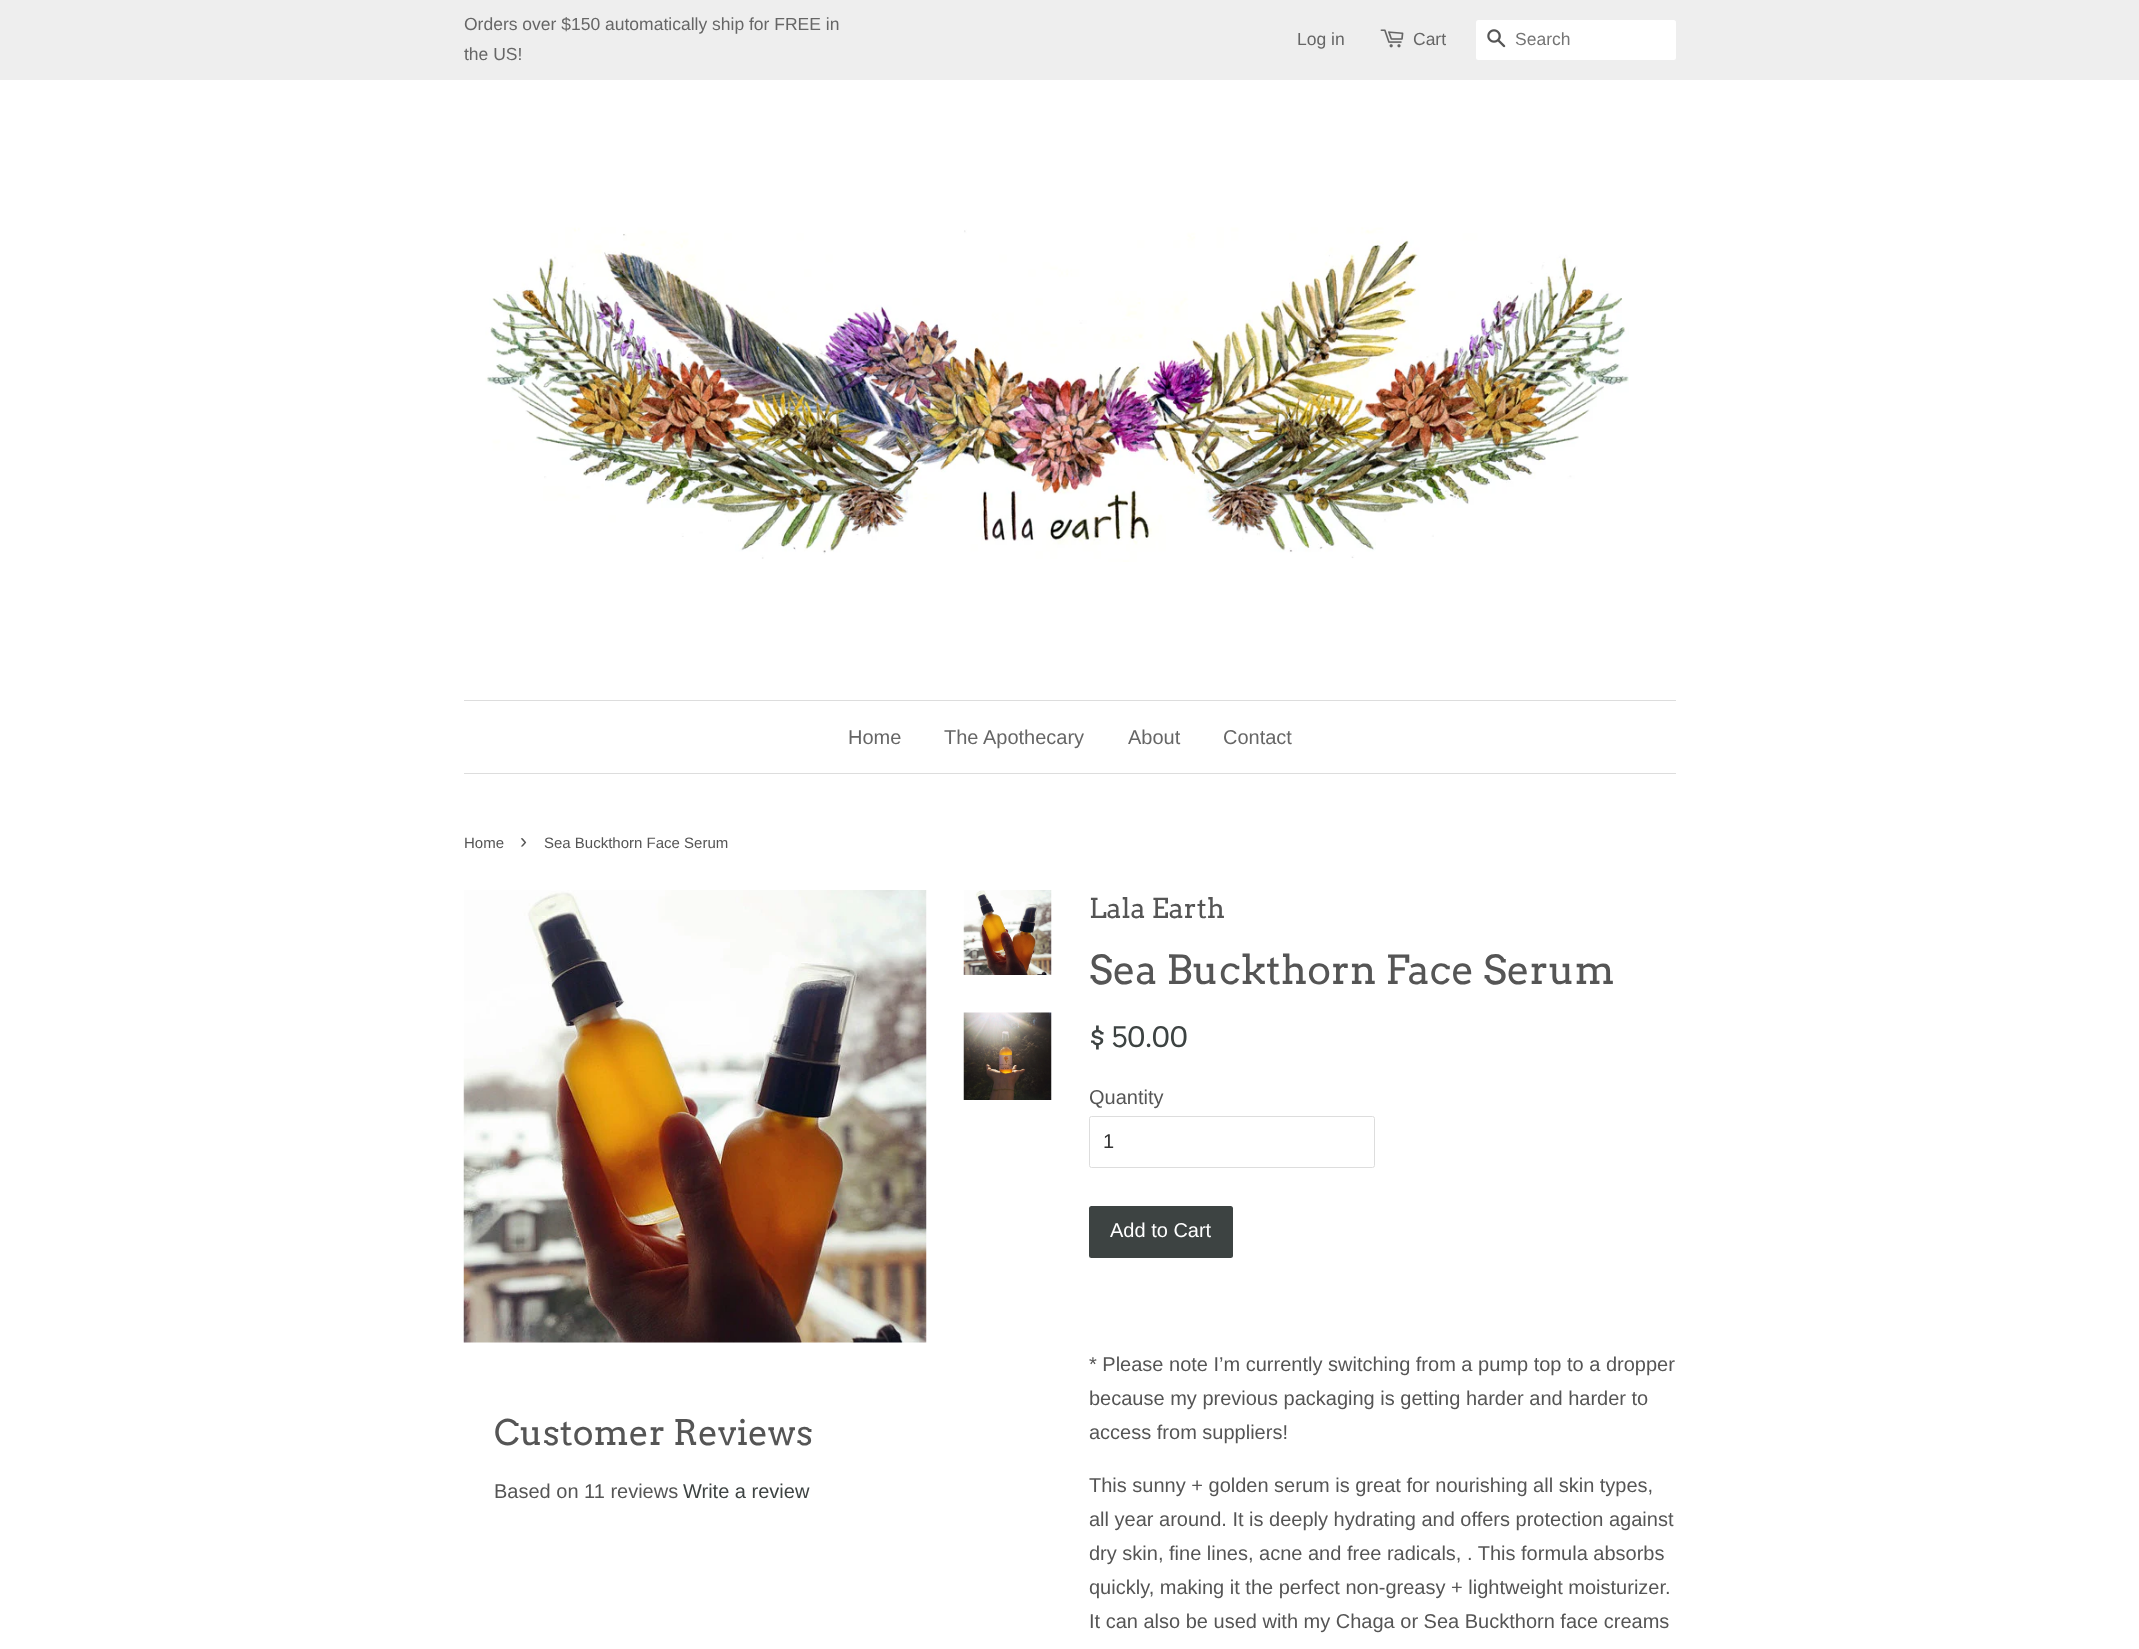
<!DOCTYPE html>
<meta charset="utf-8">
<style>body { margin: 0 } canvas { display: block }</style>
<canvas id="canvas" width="2139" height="1649"></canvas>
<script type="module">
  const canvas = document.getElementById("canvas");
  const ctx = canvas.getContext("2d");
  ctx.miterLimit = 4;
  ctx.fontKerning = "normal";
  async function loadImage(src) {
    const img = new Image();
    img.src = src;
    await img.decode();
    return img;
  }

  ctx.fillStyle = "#ffffff";
  ctx.fillRect(0, 0, 2139, 1649);
  ctx.fillStyle = "#eeeeee";
  ctx.fillRect(0, 0, 2139, 80);
  ctx.font = "17.5px Liberation Sans";
  ctx.fillStyle = "#666666";
  ctx.fillText("Orders over $150 automatically ship for FREE in", 464, 30);
  ctx.fillText("the US!", 464, 60);
  ctx.fillText("Log in", 1297, 45);
  ctx.drawImage(await loadImage("img1.png"), 1380, 29, 24, 19);
  ctx.fillText("Cart", 1413, 45);
  ctx.fillStyle = "#ffffff";
  ctx.beginPath();
  ctx.roundRect(1476, 20, 200, 40, 2.5);
  ctx.fill();
  ctx.drawImage(await loadImage("img2.png"), 1487, 29, 19, 19);
  ctx.fillStyle = "#757575";
  ctx.fillText("Search", 1515, 45);
  ctx.drawImage(await loadImage("img3.png"), 485, 227, 1144, 335);
  ctx.fillStyle = "#dddddd";
  ctx.fillRect(464, 700, 1212, 1);
  ctx.fillRect(464, 773, 1212, 1);
  ctx.font = "20px Liberation Sans";
  ctx.fillStyle = "#666666";
  ctx.fillText("Home", 848, 744);
  ctx.fillText("The Apothecary", 944, 744);
  ctx.fillText("About", 1128, 744);
  ctx.fillText("Contact", 1223, 744);
  ctx.font = "15px Liberation Sans";
  ctx.fillStyle = "#555555";
  ctx.fillText("Home", 464, 848);
  ctx.font = "21px Liberation Sans";
  ctx.fillText("›", 520, 848);
  ctx.font = "15px Liberation Sans";
  ctx.fillText("Sea Buckthorn Face Serum", 544, 848);
  ctx.drawImage(await loadImage("img4.png"), 463, 890, 464, 453);
  ctx.drawImage(await loadImage("img5.png"), 963, 890, 89, 85);
  ctx.drawImage(await loadImage("img6.png"), 963, 1012, 89, 88);
  ctx.font = "35px Arvo";
  ctx.fillText("Customer Reviews", 494, 1445);
  ctx.font = "20px Liberation Sans";
  ctx.fillText("Based on 11 reviews", 494, 1498);
  ctx.fillStyle = "#3d4342";
  ctx.fillText("Write a review", 683, 1498);
  ctx.font = "27.5px Arvo";
  ctx.fillStyle = "#555555";
  ctx.fillText("Lala Earth", 1089, 918);
  ctx.font = "40px Arvo";
  ctx.fillText("Sea Buckthorn Face Serum", 1089, 984);
  ctx.font = "28px Arvo";
  ctx.fillStyle = "#3d4342";
  ctx.fillText("$ 50.00", 1089, 1047);
  ctx.font = "20px Liberation Sans";
  ctx.fillStyle = "#555555";
  ctx.fillText("Quantity", 1089, 1104);
  ctx.beginPath();
  ctx.roundRect(1089.5, 1116.5, 285, 51, 2);
  ctx.strokeStyle = "#dddddd";
  ctx.stroke();
  ctx.fillStyle = "#333333";
  ctx.fillText("1", 1103, 1148);
  ctx.fillStyle = "#3d4342";
  ctx.beginPath();
  ctx.roundRect(1089, 1206, 144, 52, 2.5);
  ctx.fill();
  ctx.fillStyle = "#ffffff";
  ctx.fillText("Add to Cart", 1110, 1237);
  ctx.fillStyle = "#555555";
  ctx.fillText("* Please note I’m currently switching from a pump top to a dropper", 1089, 1371);
  ctx.fillText("because my previous packaging is getting harder and harder to", 1089, 1405);
  ctx.fillText("access from suppliers!", 1089, 1439);
  ctx.fillText("This sunny + golden serum is great for nourishing all skin types,", 1089, 1492);
  ctx.fillText("all year around. It is deeply hydrating and offers protection against", 1089, 1526);
  ctx.fillText("dry skin, fine lines, acne and free radicals, . This formula absorbs", 1089, 1560);
  ctx.fillText("quickly, making it the perfect non-greasy + lightweight moisturizer.", 1089, 1594);
  ctx.fillText("It can also be used with my Chaga or Sea Buckthorn face creams", 1089, 1628);
</script>
